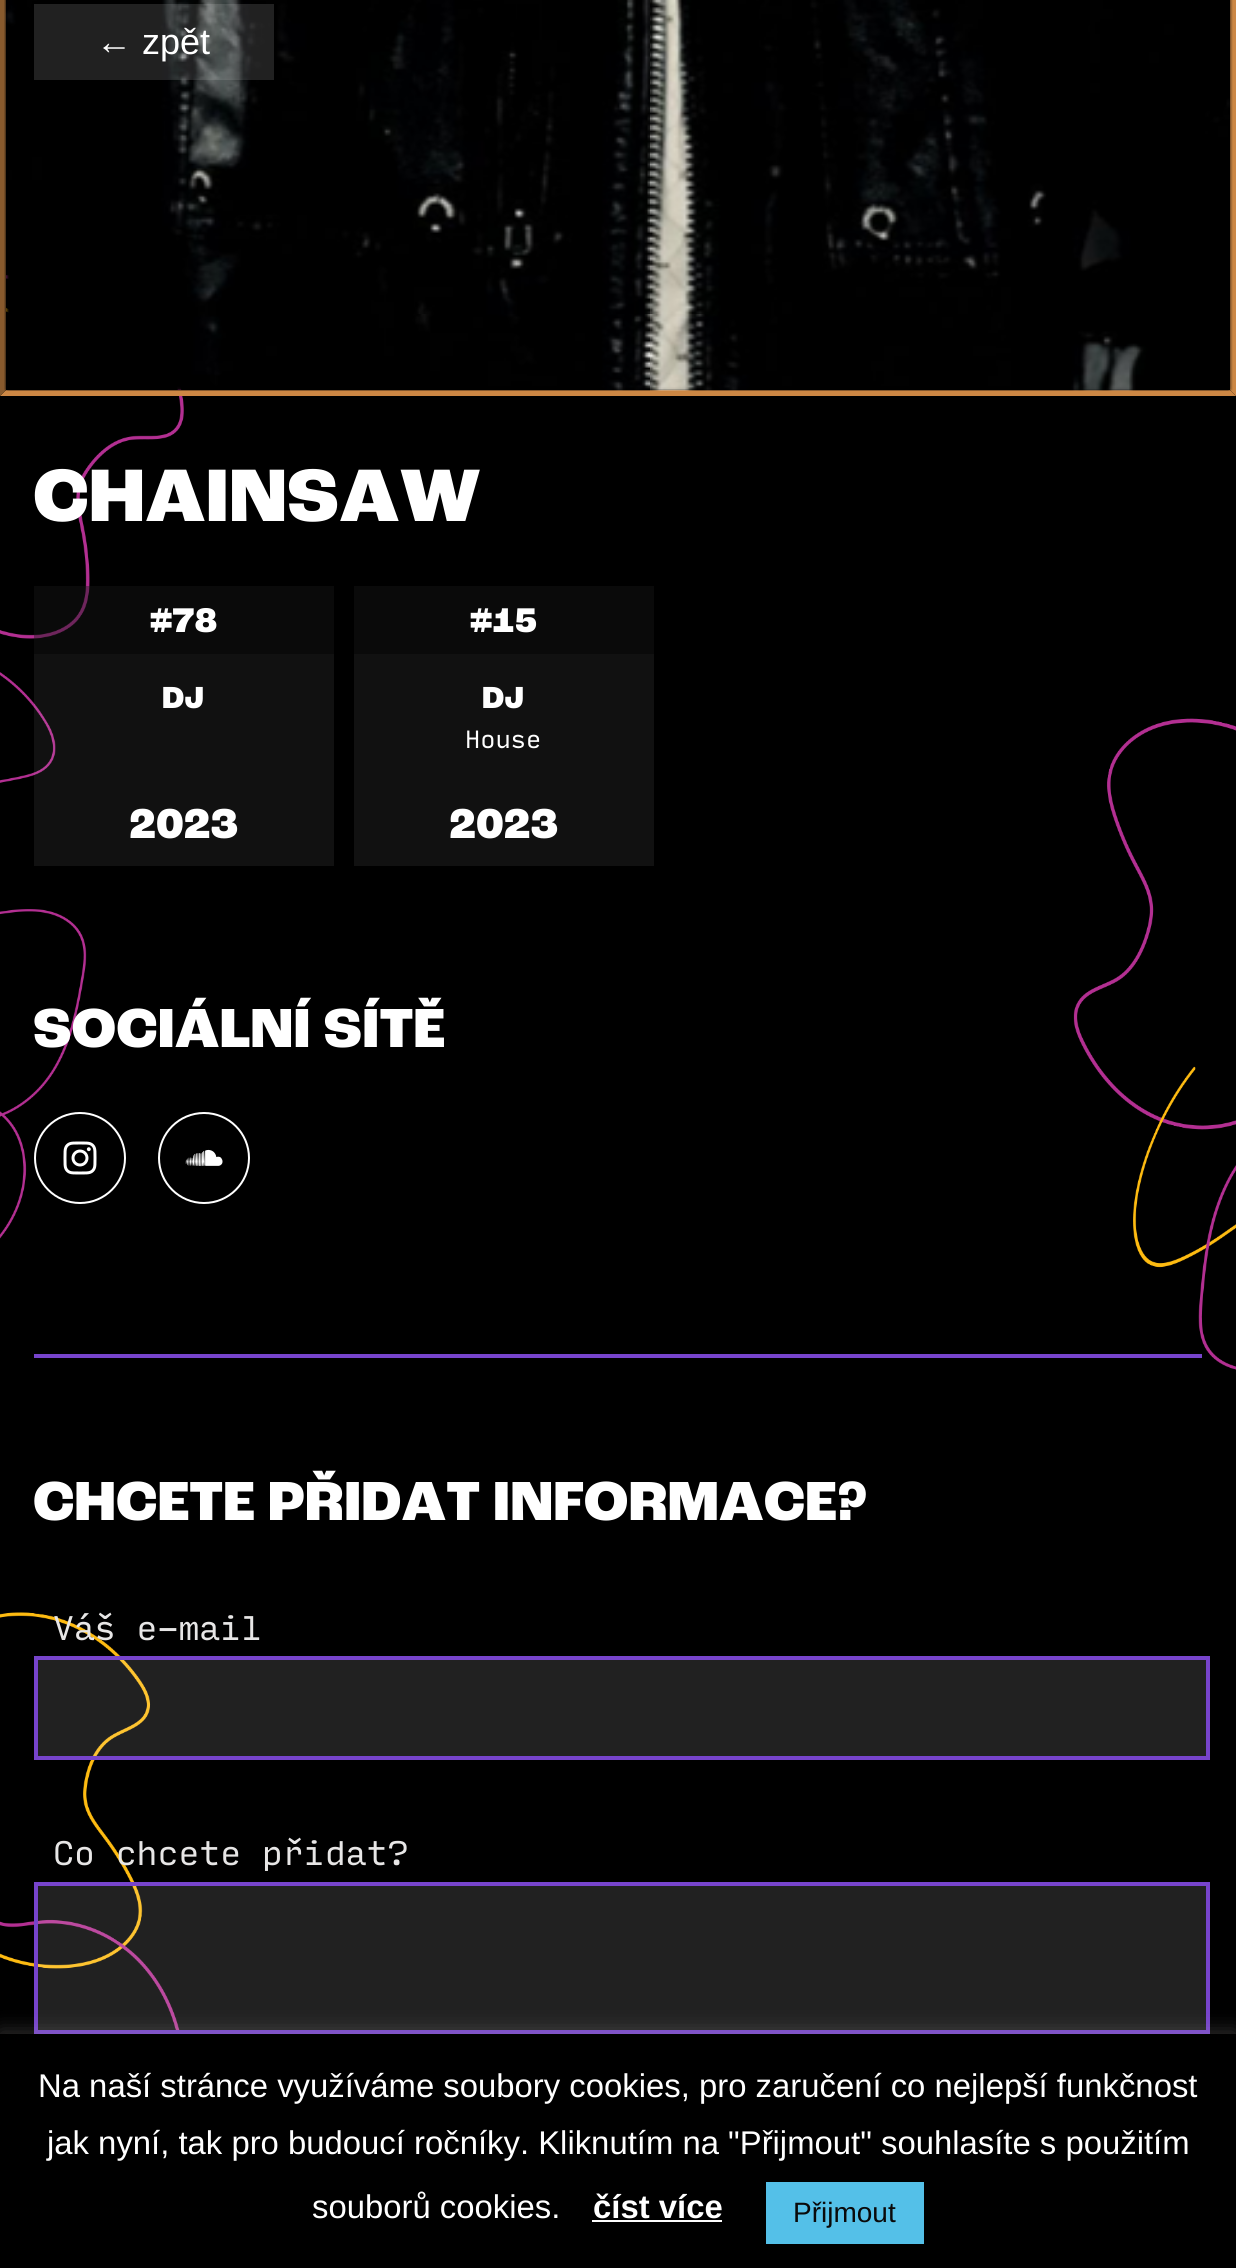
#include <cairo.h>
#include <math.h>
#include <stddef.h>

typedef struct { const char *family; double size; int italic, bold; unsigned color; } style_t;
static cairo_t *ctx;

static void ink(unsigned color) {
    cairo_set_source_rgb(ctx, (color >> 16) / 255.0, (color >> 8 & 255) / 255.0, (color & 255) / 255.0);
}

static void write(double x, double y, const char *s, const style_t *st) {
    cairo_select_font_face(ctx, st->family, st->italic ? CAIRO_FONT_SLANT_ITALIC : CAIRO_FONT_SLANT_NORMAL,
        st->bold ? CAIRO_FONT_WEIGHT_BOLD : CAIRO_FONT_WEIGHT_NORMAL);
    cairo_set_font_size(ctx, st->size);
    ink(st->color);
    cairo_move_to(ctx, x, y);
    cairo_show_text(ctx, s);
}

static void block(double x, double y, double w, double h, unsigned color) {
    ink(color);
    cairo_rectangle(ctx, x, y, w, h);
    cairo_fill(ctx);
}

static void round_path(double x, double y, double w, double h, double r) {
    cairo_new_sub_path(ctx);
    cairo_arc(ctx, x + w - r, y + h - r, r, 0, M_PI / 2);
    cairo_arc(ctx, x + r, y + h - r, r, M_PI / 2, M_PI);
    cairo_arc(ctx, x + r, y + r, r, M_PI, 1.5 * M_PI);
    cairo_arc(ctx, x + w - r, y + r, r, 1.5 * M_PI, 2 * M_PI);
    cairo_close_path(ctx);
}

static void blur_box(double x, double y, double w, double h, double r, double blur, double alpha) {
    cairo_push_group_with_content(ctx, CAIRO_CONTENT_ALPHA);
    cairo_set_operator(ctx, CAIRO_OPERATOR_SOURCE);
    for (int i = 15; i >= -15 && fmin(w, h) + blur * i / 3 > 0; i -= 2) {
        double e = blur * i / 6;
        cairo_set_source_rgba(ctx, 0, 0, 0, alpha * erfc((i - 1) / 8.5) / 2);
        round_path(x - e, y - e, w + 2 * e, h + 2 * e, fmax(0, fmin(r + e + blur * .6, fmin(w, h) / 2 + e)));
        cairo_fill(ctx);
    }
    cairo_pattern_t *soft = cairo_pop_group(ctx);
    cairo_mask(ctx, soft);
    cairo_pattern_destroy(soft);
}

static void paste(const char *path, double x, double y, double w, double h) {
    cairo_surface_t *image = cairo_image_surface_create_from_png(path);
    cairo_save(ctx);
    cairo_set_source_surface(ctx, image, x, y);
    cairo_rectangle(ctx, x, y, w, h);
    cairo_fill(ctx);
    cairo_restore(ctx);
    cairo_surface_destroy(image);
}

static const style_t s1 = {"Liberation Sans", 36, 0, 0, 0xffffff};
static const style_t s2 = {"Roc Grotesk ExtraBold", 78, 0, 0, 0xffffff};
static const style_t s3 = {"Roc Grotesk ExtraBold", 36, 0, 0, 0xffffff};
static const style_t s4 = {"Roc Grotesk ExtraBold", 32, 0, 0, 0xffffff};
static const style_t s5 = {"Roc Grotesk ExtraBold", 44, 0, 0, 0xffffff};
static const style_t s6 = {"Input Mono", 24, 0, 0, 0xffffff};
static const style_t s7 = {"Roc Grotesk ExtraBold", 57.75, 0, 0, 0xffffff};
static const style_t s8 = {"Input Mono", 32.85, 0, 0, 0xe7e6e6};
static const style_t s9 = {"Liberation Sans", 32.85, 0, 0, 0xffffff};
static const style_t s10 = {"Liberation Sans", 32.85, 0, 1, 0xffffff};
static const style_t s11 = {"Liberation Sans", 28, 0, 0, 0x0a0a0a};

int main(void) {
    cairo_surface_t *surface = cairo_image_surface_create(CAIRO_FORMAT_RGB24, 1236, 2268);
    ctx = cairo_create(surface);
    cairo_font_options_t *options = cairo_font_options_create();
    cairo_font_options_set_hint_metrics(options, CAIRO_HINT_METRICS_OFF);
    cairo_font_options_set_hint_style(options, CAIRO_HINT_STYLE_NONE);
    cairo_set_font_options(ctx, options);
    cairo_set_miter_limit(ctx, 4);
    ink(0x000000);
    cairo_paint(ctx);
    paste("pic1.png", 0, 274, 1236, 1756);
    ink(0xcc8744);
    cairo_new_path(ctx);
    cairo_move_to(ctx, 1236, -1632);
    cairo_line_to(ctx, 1236, 396);
    cairo_line_to(ctx, 1230, 390);
    cairo_line_to(ctx, 1230, -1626);
    cairo_close_path(ctx);
    cairo_fill(ctx);
    cairo_new_path(ctx);
    cairo_move_to(ctx, 1236, 396);
    cairo_line_to(ctx, 0, 396);
    cairo_line_to(ctx, 6, 390);
    cairo_line_to(ctx, 1230, 390);
    cairo_close_path(ctx);
    cairo_fill(ctx);
    ink(0x885a2d);
    cairo_new_path(ctx);
    cairo_move_to(ctx, 0, 396);
    cairo_line_to(ctx, 0, -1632);
    cairo_line_to(ctx, 6, -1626);
    cairo_line_to(ctx, 6, 390);
    cairo_close_path(ctx);
    cairo_fill(ctx);
    paste("pic2.png", 4, 0, 1229, 391);
    cairo_set_source_rgba(ctx, 1, 1, 1, 0.13);
    cairo_rectangle(ctx, 34, 4, 240, 76);
    cairo_fill(ctx);
    write(96, 54, "← zpět", &s1);
    write(33, 521, "CHAINSAW", &s2);
    cairo_set_source_rgba(ctx, 1, 1, 1, 0.07);
    cairo_rectangle(ctx, 34, 586, 300, 280);
    cairo_fill(ctx);
    cairo_set_source_rgba(ctx, 0, 0, 0, 0.4);
    cairo_rectangle(ctx, 34, 586, 300, 68);
    cairo_fill(ctx);
    write(150, 632, "#78", &s3);
    write(162, 708, "DJ", &s4);
    write(129, 838, "2023", &s5);
    block(354, 654, 300, 212, 0x111111);
    block(354, 586, 300, 68, 0x0a0a0a);
    write(470, 632, "#15", &s3);
    write(482, 708, "DJ", &s4);
    write(465, 748, "House", &s6);
    write(449, 838, "2023", &s5);
    write(33, 1047, "SOCIÁLNÍ SÍTĚ", &s7);
    cairo_new_path(ctx);
    cairo_arc(ctx, 80, 1158, 45, 0, 2 * M_PI);
    cairo_stroke(ctx);
    paste("pic3.png", 63, 1141, 34, 34);
    cairo_arc(ctx, 204, 1158, 45, 0, 2 * M_PI);
    cairo_stroke(ctx);
    paste("pic4.png", 185, 1149, 38, 17);
    block(34, 1354, 1168, 4, 0x7744cc);
    write(33, 1520, "CHCETE PŘIDAT INFORMACE?", &s7);
    write(53, 1640, "Váš e-mail", &s8);
    cairo_set_source_rgba(ctx, 1, 1, 1, 0.13);
    cairo_rectangle(ctx, 36, 1658, 1172, 100);
    cairo_fill_preserve(ctx);
    ink(0x7744cc);
    cairo_set_line_width(ctx, 4);
    cairo_stroke(ctx);
    write(53, 1865, "Co chcete přidat?", &s8);
    cairo_set_source_rgba(ctx, 1, 1, 1, 0.13);
    cairo_rectangle(ctx, 36, 1884, 1172, 148);
    cairo_fill_preserve(ctx);
    ink(0x7744cc);
    cairo_stroke(ctx);
    ink(0xacabab);
    blur_box(0, 2032, 1236, 234, 0, 10, 0.3);
    block(0, 2034, 1236, 234, 0x000000);
    write(38, 2097, "Na naší stránce využíváme soubory cookies, pro zaručení co nejlepší funkčnost", &s9);
    write(47, 2154, "jak nyní, tak pro budoucí ročníky. Kliknutím na \"Přijmout\" souhlasíte s použitím", &s9);
    write(312, 2218, "souborů cookies.", &s9);
    write(593, 2218, "číst více", &s10);
    block(592, 2220, 130, 2, 0xffffff);
    block(766, 2182, 158, 62, 0x54c0e8);
    write(793, 2222, "Přijmout", &s11);
    cairo_surface_write_to_png(surface, "screenshot.png");
    cairo_font_options_destroy(options);
    cairo_destroy(ctx);
    cairo_surface_destroy(surface);
    return 0;
}
